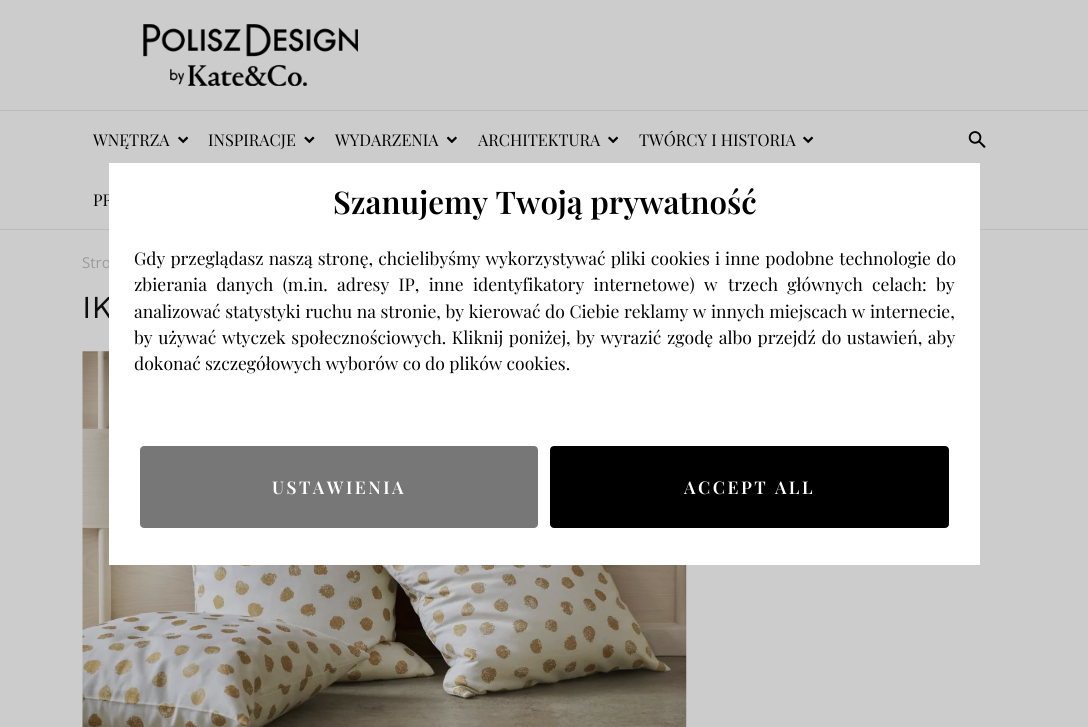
#include <cairo.h>
#include <math.h>
#include <stddef.h>

typedef struct { const char *family; double size; int italic, bold; unsigned color; } style_t;
static cairo_t *ctx;

static void ink(unsigned color) {
    cairo_set_source_rgb(ctx, (color >> 16) / 255.0, (color >> 8 & 255) / 255.0, (color & 255) / 255.0);
}

static void write(double x, double y, const char *s, const style_t *st) {
    cairo_select_font_face(ctx, st->family, st->italic ? CAIRO_FONT_SLANT_ITALIC : CAIRO_FONT_SLANT_NORMAL,
        st->bold ? CAIRO_FONT_WEIGHT_BOLD : CAIRO_FONT_WEIGHT_NORMAL);
    cairo_set_font_size(ctx, st->size);
    ink(st->color);
    cairo_move_to(ctx, x, y);
    cairo_show_text(ctx, s);
}

static void write_spaced(double x, double y, const char *s, double letter, double word) {
    cairo_move_to(ctx, x, y);
    while (*s) {
        char ch[5] = {0};
        int n = 0;
        do ch[n++] = *s++; while ((*s & 0xC0) == 0x80);
        cairo_show_text(ctx, ch);
        cairo_rel_move_to(ctx, letter + word * (*ch == ' '), 0);
    }
}

static void block(double x, double y, double w, double h, unsigned color) {
    ink(color);
    cairo_rectangle(ctx, x, y, w, h);
    cairo_fill(ctx);
}

static void round_path(double x, double y, double w, double h, double r) {
    cairo_new_sub_path(ctx);
    cairo_arc(ctx, x + w - r, y + h - r, r, 0, M_PI / 2);
    cairo_arc(ctx, x + r, y + h - r, r, M_PI / 2, M_PI);
    cairo_arc(ctx, x + r, y + r, r, M_PI, 1.5 * M_PI);
    cairo_arc(ctx, x + w - r, y + r, r, 1.5 * M_PI, 2 * M_PI);
    cairo_close_path(ctx);
}

static void paste(const char *path, double x, double y, double w, double h) {
    cairo_surface_t *image = cairo_image_surface_create_from_png(path);
    cairo_save(ctx);
    cairo_set_source_surface(ctx, image, x, y);
    cairo_rectangle(ctx, x, y, w, h);
    cairo_fill(ctx);
    cairo_restore(ctx);
    cairo_surface_destroy(image);
}

static const style_t s1 = {"Playfair Display", 16.25, 0, 0, 0x000000};
static const style_t s2 = {"Open Sans", 15, 0, 0, 0x9c9c9c};
static const style_t s3 = {"Work Sans", 32, 0, 0, 0x0e0e0e};
static const style_t s4 = {"Playfair Display SemiBold", 31.25, 0, 0, 0x000000};
static const style_t s5 = {"Playfair Display", 17.5, 0, 0, 0x000000};

int main(void) {
    cairo_surface_t *surface = cairo_image_surface_create(CAIRO_FORMAT_RGB24, 1088, 727);
    ctx = cairo_create(surface);
    cairo_font_options_t *options = cairo_font_options_create();
    cairo_font_options_set_hint_metrics(options, CAIRO_HINT_METRICS_OFF);
    cairo_font_options_set_hint_style(options, CAIRO_HINT_STYLE_NONE);
    cairo_set_font_options(ctx, options);
    cairo_set_miter_limit(ctx, 4);
    ink(0xcccccc);
    cairo_paint(ctx);
    paste("pic1.png", 143, 24, 215, 62);
    block(0, 110, 1088, 1, 0xbcbcbc);
    write(93, 146, "WNĘTRZA", &s1);
    paste("pic2.png", 178, 136, 11, 8);
    write(208, 146, "INSPIRACJE", &s1);
    paste("pic3.png", 304, 136, 11, 8);
    write(335, 146, "WYDARZENIA", &s1);
    paste("pic4.png", 446, 136, 11, 8);
    write(478, 146, "ARCHITEKTURA", &s1);
    paste("pic2.png", 608, 136, 11, 8);
    write(639, 146, "TWÓRCY I HISTORIA", &s1);
    paste("pic2.png", 803, 136, 11, 8);
    write(93, 206, "PR", &s1);
    paste("pic5.png", 968, 131, 18, 17);
    block(0, 229, 1088, 1, 0xbcbcbc);
    write(82, 268, "Stro", &s2);
    write(82, 318, "IK", &s3);
    paste("pic6.png", 82, 351, 605, 376);
    block(109, 163, 871, 402, 0xffffff);
    write(333, 214, "Szanujemy Twoją prywatność", &s4);
    cairo_select_font_face(ctx, "Playfair Display", CAIRO_FONT_SLANT_NORMAL, CAIRO_FONT_WEIGHT_NORMAL);
    cairo_set_font_size(ctx, 17.5);
    write_spaced(134, 265, "Gdy przeglądasz naszą stronę, chcielibyśmy wykorzystywać pliki cookies i", 0, 0.75);
    write_spaced(725, 265, "inne podobne technologie do", 0, 1);
    write_spaced(134, 291, "zbierania danych (m.in. adresy IP, inne identyfikatory internetowe) w", 0, 5);
    write_spaced(728, 291, "trzech głównych celach: by", 0, 5);
    write_spaced(134, 318, "analizować statystyki ruchu na stronie, by kierować do Ciebie reklamy w innych miejscach w internecie,", 0, 0.25);
    write_spaced(134, 344, "by używać wtyczek społecznościowych. Kliknij poniżej, by wyrazić", 0, 1.25);
    write_spaced(667, 344, "zgodę albo przejdź do ustawień, aby", 0, 1.25);
    write(134, 370, "dokonać szczegółowych wyborów co do plików cookies.", &s5);
    ink(0x777777);
    round_path(141.5, 447.5, 395, 79, 2.5);
    cairo_fill_preserve(ctx);
    cairo_set_line_width(ctx, 3);
    cairo_stroke(ctx);
    cairo_select_font_face(ctx, "Playfair Display SemiBold", CAIRO_FONT_SLANT_NORMAL, CAIRO_FONT_WEIGHT_NORMAL);
    ink(0xffffff);
    write_spaced(272, 494, "USTAWIENIA", 2.5, 0);
    ink(0x000000);
    round_path(551.5, 447.5, 396, 79, 2.5);
    cairo_fill_preserve(ctx);
    cairo_stroke(ctx);
    ink(0xffffff);
    write_spaced(684, 494, "ACCEPT ALL", 2.5, 0);
    cairo_surface_write_to_png(surface, "screenshot.png");
    cairo_font_options_destroy(options);
    cairo_destroy(ctx);
    cairo_surface_destroy(surface);
    return 0;
}
